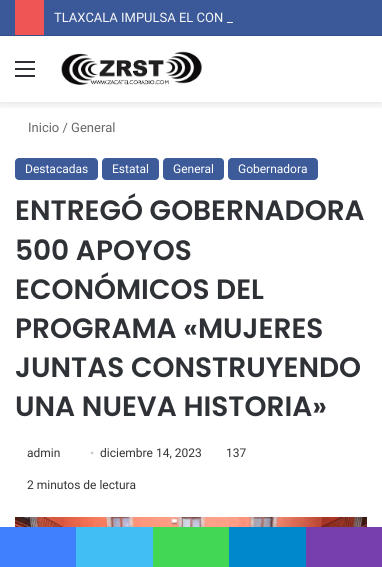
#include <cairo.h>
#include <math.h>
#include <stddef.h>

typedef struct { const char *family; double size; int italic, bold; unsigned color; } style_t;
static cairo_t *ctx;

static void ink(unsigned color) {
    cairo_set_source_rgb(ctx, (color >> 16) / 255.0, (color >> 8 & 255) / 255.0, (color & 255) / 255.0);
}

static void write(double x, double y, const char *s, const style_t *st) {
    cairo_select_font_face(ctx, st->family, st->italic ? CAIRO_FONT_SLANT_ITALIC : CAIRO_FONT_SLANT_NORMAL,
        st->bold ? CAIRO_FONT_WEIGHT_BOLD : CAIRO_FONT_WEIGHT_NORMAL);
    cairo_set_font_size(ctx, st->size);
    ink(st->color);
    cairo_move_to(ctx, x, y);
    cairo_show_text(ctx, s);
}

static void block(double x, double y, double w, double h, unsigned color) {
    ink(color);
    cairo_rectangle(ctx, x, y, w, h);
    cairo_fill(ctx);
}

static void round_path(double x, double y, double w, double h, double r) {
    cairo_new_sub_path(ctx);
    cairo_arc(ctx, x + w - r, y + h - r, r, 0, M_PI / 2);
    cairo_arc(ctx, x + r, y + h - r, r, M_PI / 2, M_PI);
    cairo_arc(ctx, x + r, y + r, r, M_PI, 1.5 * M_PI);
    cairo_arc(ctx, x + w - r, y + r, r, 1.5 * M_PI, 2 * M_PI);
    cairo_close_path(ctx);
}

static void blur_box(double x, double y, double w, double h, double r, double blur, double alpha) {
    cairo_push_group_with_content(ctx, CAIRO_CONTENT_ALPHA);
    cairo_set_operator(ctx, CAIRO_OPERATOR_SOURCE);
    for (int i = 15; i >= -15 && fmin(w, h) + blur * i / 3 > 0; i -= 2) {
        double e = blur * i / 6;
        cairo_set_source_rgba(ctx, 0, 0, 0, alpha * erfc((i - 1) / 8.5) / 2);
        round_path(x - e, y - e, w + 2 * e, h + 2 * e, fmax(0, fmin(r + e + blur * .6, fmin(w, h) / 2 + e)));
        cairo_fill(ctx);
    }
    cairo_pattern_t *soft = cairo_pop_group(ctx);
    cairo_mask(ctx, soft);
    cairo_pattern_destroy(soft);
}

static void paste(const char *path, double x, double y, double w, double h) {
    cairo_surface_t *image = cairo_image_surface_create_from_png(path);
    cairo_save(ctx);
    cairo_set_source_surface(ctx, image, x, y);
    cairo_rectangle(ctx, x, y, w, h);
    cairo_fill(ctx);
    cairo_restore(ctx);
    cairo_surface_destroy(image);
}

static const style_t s1 = {"Roboto", 13, 0, 0, 0xf6f7f9};
static const style_t s2 = {"Roboto", 13, 0, 0, 0xffffff};
static const style_t s3 = {"Roboto", 13, 0, 0, 0x686868};
static const style_t s4 = {"Roboto", 12, 0, 0, 0xffffff};
static const style_t s5 = {"Poppins SemiBold", 28, 0, 0, 0x2e3136};
static const style_t s6 = {"Roboto", 12, 0, 0, 0x353535};
static const style_t s7 = {"Liberation Serif", 12, 0, 0, 0xcdcdcd};

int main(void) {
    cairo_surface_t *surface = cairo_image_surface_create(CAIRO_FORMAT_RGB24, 382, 567);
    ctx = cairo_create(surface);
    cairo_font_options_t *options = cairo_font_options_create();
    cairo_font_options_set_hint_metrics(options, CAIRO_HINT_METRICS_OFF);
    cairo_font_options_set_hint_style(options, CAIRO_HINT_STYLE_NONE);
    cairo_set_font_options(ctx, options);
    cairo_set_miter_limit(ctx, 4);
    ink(0xffffff);
    cairo_paint(ctx);
    cairo_save(ctx);
    cairo_rectangle(ctx, 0, 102, 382, 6);
    cairo_clip(ctx);
    ink(0x000000);
    blur_box(0, 39, 382, 66, 0, 3.5, 0.1);
    cairo_restore(ctx);
    block(0, 0, 382, 35, 0x3b5998);
    block(0, 35, 382, 1, 0x355089);
    block(15, 0, 29, 35, 0xf05555);
    write(54, 22, "TLAXCALA IMPULSA EL CON", &s1);
    write(227, 22, "_", &s2);
    block(15, 68, 20, 2, 0x2c2f34);
    block(15, 61, 20, 2, 0x2c2f34);
    block(15, 75, 20, 2, 0x2c2f34);
    paste("pic1.png", 61, 51, 141, 34);
    write(28, 132, "Inicio / General", &s3);
    ink(0x3d5b99);
    round_path(15, 158, 83, 22, 4);
    cairo_fill(ctx);
    write(25, 173, "Destacadas", &s4);
    ink(0x3d5b99);
    round_path(102, 158, 57, 22, 4);
    cairo_fill(ctx);
    write(112, 173, "Estatal", &s4);
    ink(0x3d5b99);
    round_path(163, 158, 61, 22, 4);
    cairo_fill(ctx);
    write(173, 173, "General", &s4);
    ink(0x3d5b99);
    round_path(228, 158, 90, 22, 4);
    cairo_fill(ctx);
    write(238, 173, "Gobernadora", &s4);
    write(15, 220, "ENTREGÓ GOBERNADORA", &s5);
    write(15, 260, "500 APOYOS", &s5);
    write(15, 299, "ECONÓMICOS DEL", &s5);
    write(15, 338, "PROGRAMA «MUJERES", &s5);
    write(15, 377, "JUNTAS CONSTRUYENDO", &s5);
    write(15, 416, "UNA NUEVA HISTORIA»", &s5);
    write(226, 457, "137", &s6);
    write(27, 489, "2 minutos de lectura", &s6);
    write(27, 457, "admin", &s6);
    write(90, 457, "•", &s7);
    write(100, 457, "diciembre 14, 2023", &s6);
    paste("pic2.png", 15, 517, 352, 10);
    block(0, 527, 76, 40, 0x4080ff);
    block(76, 527, 77, 40, 0x40bff5);
    block(153, 527, 76, 40, 0x43d854);
    block(229, 527, 77, 40, 0x0088cc);
    block(306, 527, 76, 40, 0x773ead);
    cairo_surface_write_to_png(surface, "screenshot.png");
    cairo_font_options_destroy(options);
    cairo_destroy(ctx);
    cairo_surface_destroy(surface);
    return 0;
}
